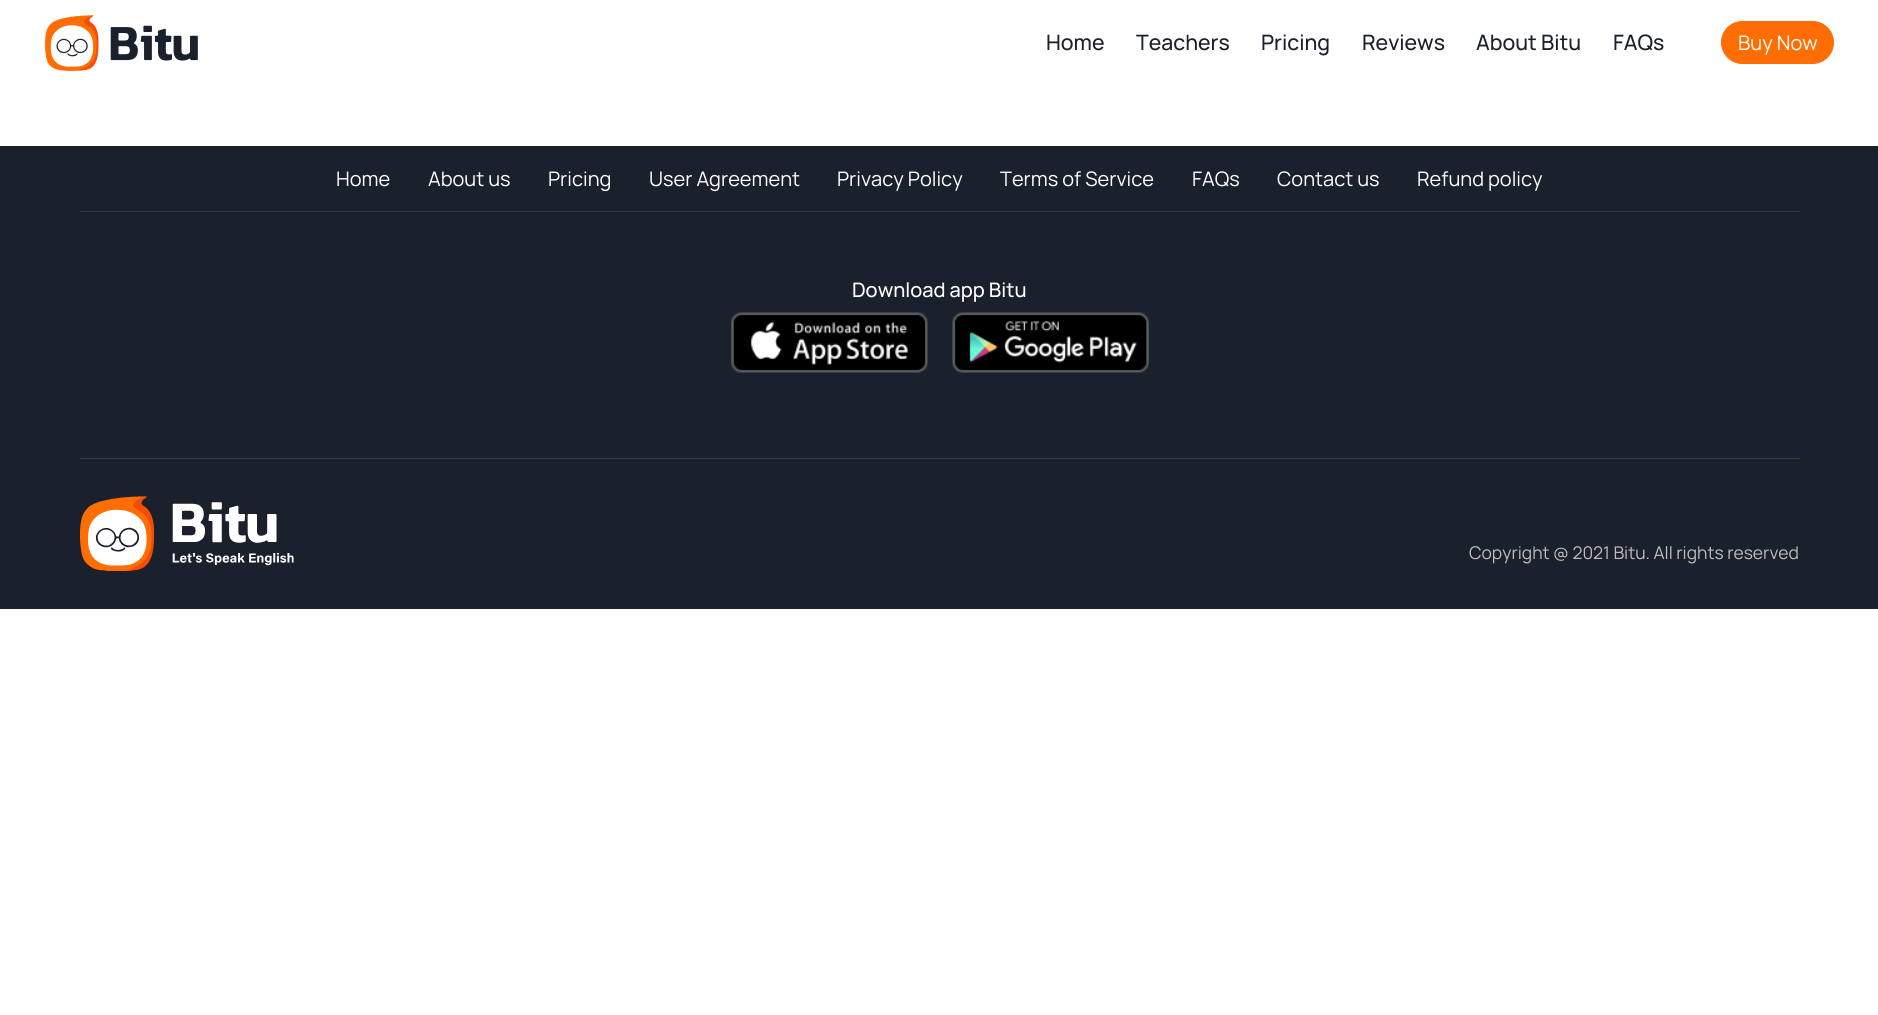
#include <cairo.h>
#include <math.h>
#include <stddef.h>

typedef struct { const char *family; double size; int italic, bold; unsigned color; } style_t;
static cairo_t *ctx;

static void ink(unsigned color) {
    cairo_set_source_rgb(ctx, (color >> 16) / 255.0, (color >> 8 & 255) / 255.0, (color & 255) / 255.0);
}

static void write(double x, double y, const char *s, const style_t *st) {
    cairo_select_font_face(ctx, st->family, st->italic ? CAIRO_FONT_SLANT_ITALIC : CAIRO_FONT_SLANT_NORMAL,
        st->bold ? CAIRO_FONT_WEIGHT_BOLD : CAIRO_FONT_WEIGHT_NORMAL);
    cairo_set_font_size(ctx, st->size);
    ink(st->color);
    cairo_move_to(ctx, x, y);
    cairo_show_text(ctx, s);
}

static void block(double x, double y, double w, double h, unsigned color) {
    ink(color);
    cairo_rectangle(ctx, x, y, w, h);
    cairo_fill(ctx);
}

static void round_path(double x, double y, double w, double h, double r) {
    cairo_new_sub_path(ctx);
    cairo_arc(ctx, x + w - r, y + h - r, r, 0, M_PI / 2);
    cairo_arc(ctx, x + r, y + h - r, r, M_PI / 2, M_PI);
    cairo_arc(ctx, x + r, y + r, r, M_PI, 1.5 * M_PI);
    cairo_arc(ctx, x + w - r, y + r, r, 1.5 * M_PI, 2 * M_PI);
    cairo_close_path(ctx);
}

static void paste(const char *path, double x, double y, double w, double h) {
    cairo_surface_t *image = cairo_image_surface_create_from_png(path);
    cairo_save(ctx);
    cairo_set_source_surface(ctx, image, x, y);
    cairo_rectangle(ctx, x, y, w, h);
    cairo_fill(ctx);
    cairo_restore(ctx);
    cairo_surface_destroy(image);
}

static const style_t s1 = {"Manrope Medium", 21.25, 0, 0, 0x1a202c};
static const style_t s2 = {"Manrope", 20, 0, 0, 0xffffff};
static const style_t s3 = {"Manrope Medium", 20, 0, 0, 0xffffff};
static const style_t s4 = {"Manrope", 17.5, 0, 0, 0xbebdbd};

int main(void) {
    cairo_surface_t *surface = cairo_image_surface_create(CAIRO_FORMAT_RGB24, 1878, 1015);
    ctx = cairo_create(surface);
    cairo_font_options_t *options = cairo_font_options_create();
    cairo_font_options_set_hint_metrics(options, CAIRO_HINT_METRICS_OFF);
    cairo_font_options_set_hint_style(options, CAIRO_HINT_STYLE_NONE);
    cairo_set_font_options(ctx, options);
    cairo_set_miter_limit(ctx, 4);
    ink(0xffffff);
    cairo_paint(ctx);
    paste("pic1.png", 45, 15, 153, 56);
    write(1046, 50, "Home", &s1);
    write(1136, 50, "Teachers", &s1);
    write(1261, 50, "Pricing", &s1);
    write(1362, 50, "Reviews", &s1);
    write(1476, 50, "About Bitu", &s1);
    write(1613, 50, "FAQs", &s1);
    ink(0xff6d03);
    round_path(1721.5, 21.5, 112, 42, 21);
    cairo_fill_preserve(ctx);
    cairo_set_line_width(ctx, 1);
    cairo_stroke(ctx);
    write(1738, 50, "Buy Now", &s2);
    block(0, 146, 1878, 463, 0x1a202c);
    write(336, 186, "Home", &s2);
    write(428, 186, "About us", &s2);
    write(548, 186, "Pricing", &s2);
    write(649, 186, "User Agreement", &s2);
    write(837, 186, "Privacy Policy", &s2);
    write(1000, 186, "Terms of Service", &s2);
    write(1192, 186, "FAQs", &s2);
    write(1277, 186, "Contact us", &s2);
    write(1417, 186, "Refund policy", &s2);
    block(80, 211, 1720, 1, 0x313641);
    write(852, 297, "Download app Bitu", &s3);
    paste("pic2.png", 731, 312, 197, 61);
    paste("pic3.png", 952, 312, 197, 61);
    block(80, 458, 1720, 1, 0x3d3a39);
    paste("pic4.png", 80, 496, 214, 75);
    write(1469, 559, "Copyright @ 2021 Bitu. All rights reserved", &s4);
    cairo_surface_write_to_png(surface, "screenshot.png");
    cairo_font_options_destroy(options);
    cairo_destroy(ctx);
    cairo_surface_destroy(surface);
    return 0;
}
